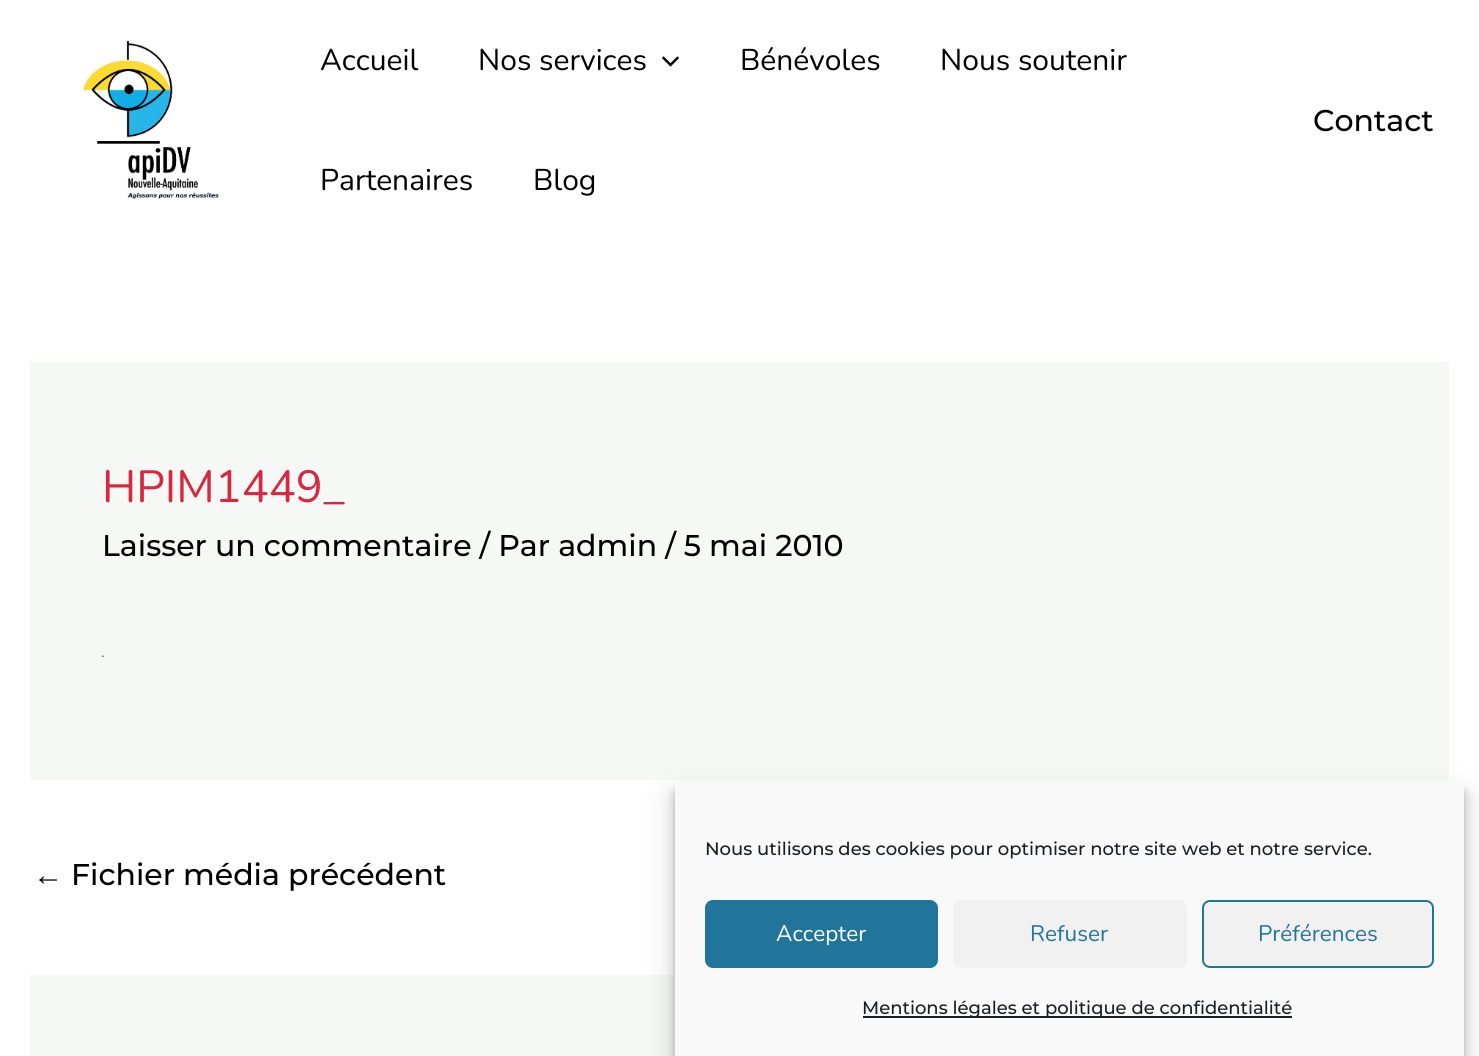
#include <cairo.h>
#include <math.h>
#include <stddef.h>

typedef struct { const char *family; double size; int italic, bold; unsigned color; } style_t;
static cairo_t *ctx;

static void ink(unsigned color) {
    cairo_set_source_rgb(ctx, (color >> 16) / 255.0, (color >> 8 & 255) / 255.0, (color & 255) / 255.0);
}

static void write(double x, double y, const char *s, const style_t *st) {
    cairo_select_font_face(ctx, st->family, st->italic ? CAIRO_FONT_SLANT_ITALIC : CAIRO_FONT_SLANT_NORMAL,
        st->bold ? CAIRO_FONT_WEIGHT_BOLD : CAIRO_FONT_WEIGHT_NORMAL);
    cairo_set_font_size(ctx, st->size);
    ink(st->color);
    cairo_move_to(ctx, x, y);
    cairo_show_text(ctx, s);
}

static void block(double x, double y, double w, double h, unsigned color) {
    ink(color);
    cairo_rectangle(ctx, x, y, w, h);
    cairo_fill(ctx);
}

static void round_path(double x, double y, double w, double h, double r) {
    cairo_new_sub_path(ctx);
    cairo_arc(ctx, x + w - r, y + h - r, r, 0, M_PI / 2);
    cairo_arc(ctx, x + r, y + h - r, r, M_PI / 2, M_PI);
    cairo_arc(ctx, x + r, y + r, r, M_PI, 1.5 * M_PI);
    cairo_arc(ctx, x + w - r, y + r, r, 1.5 * M_PI, 2 * M_PI);
    cairo_close_path(ctx);
}

static void blur_box(double x, double y, double w, double h, double r, double blur, double alpha) {
    cairo_push_group_with_content(ctx, CAIRO_CONTENT_ALPHA);
    cairo_set_operator(ctx, CAIRO_OPERATOR_SOURCE);
    for (int i = 15; i >= -15 && fmin(w, h) + blur * i / 3 > 0; i -= 2) {
        double e = blur * i / 6;
        cairo_set_source_rgba(ctx, 0, 0, 0, alpha * erfc((i - 1) / 8.5) / 2);
        round_path(x - e, y - e, w + 2 * e, h + 2 * e, fmax(0, fmin(r + e + blur * .6, fmin(w, h) / 2 + e)));
        cairo_fill(ctx);
    }
    cairo_pattern_t *soft = cairo_pop_group(ctx);
    cairo_mask(ctx, soft);
    cairo_pattern_destroy(soft);
}

static void paste(const char *path, double x, double y, double w, double h) {
    cairo_surface_t *image = cairo_image_surface_create_from_png(path);
    cairo_save(ctx);
    cairo_set_source_surface(ctx, image, x, y);
    cairo_rectangle(ctx, x, y, w, h);
    cairo_fill(ctx);
    cairo_restore(ctx);
    cairo_surface_destroy(image);
}

static const style_t s1 = {"Nunito", 30, 0, 0, 0x000000};
static const style_t s2 = {"Montserrat Medium", 30, 0, 0, 0x000000};
static const style_t s3 = {"Nunito", 45, 0, 0, 0xd52941};
static const style_t s4 = {"Liberation Sans", 30, 0, 0, 0x000000};
static const style_t s5 = {"Montserrat Medium", 18, 0, 0, 0x191e23};
static const style_t s6 = {"Nunito", 22.5, 0, 0, 0xffffff};
static const style_t s7 = {"Nunito", 22.5, 0, 0, 0x21759b};

int main(void) {
    cairo_surface_t *surface = cairo_image_surface_create(CAIRO_FORMAT_RGB24, 1479, 1056);
    ctx = cairo_create(surface);
    cairo_font_options_t *options = cairo_font_options_create();
    cairo_font_options_set_hint_metrics(options, CAIRO_HINT_METRICS_OFF);
    cairo_font_options_set_hint_style(options, CAIRO_HINT_STYLE_NONE);
    cairo_set_font_options(ctx, options);
    cairo_set_miter_limit(ctx, 4);
    ink(0xffffff);
    cairo_paint(ctx);
    paste("pic1.png", 83, 41, 136, 158);
    write(320, 70, "Accueil", &s1);
    write(478, 70, "Nos services", &s1);
    paste("pic2.png", 662, 56, 17, 11);
    write(740, 70, "Bénévoles", &s1);
    write(940, 70, "Nous soutenir", &s1);
    write(320, 190, "Partenaires", &s1);
    write(533, 190, "Blog", &s1);
    write(1313, 131, "Contact", &s2);
    block(30, 362, 1419, 418, 0xf6f8f5);
    write(102, 502, "HPIM1449_", &s3);
    write(102, 556, "Laisser un commentaire / Par admin / 5 mai 2010", &s2);
    paste("pic3.png", 102, 655, 2, 2);
    write(33, 885, "←", &s4);
    write(71, 885, "Fichier média précédent", &s2);
    block(30, 975, 645, 81, 0xf6f8f5);
    ink(0x000000);
    blur_box(675, 792, 789, 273, 0, 4.5, 0.23);
    blur_box(675, 798, 789, 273, 0, 15, 0.19);
    block(675, 783, 789, 273, 0xf9f9f9);
    write(705, 855, "Nous utilisons des cookies pour optimiser notre site web et notre service.", &s5);
    ink(0x21759b);
    round_path(706, 901, 231, 66, 7);
    cairo_fill_preserve(ctx);
    cairo_stroke(ctx);
    write(776, 941, "Accepter", &s6);
    ink(0xf1f1f1);
    round_path(953, 900, 234, 68, 8);
    cairo_fill(ctx);
    write(1030, 941, "Refuser", &s7);
    ink(0xf1f1f1);
    round_path(1203, 901, 230, 66, 7);
    cairo_fill_preserve(ctx);
    ink(0x21759b);
    cairo_stroke(ctx);
    write(1258, 941, "Préférences", &s7);
    block(863, 1016, 429, 2, 0x191e23);
    write(862, 1014, "Mentions légales et politique de confidentialité", &s5);
    cairo_surface_write_to_png(surface, "screenshot.png");
    cairo_font_options_destroy(options);
    cairo_destroy(ctx);
    cairo_surface_destroy(surface);
    return 0;
}
